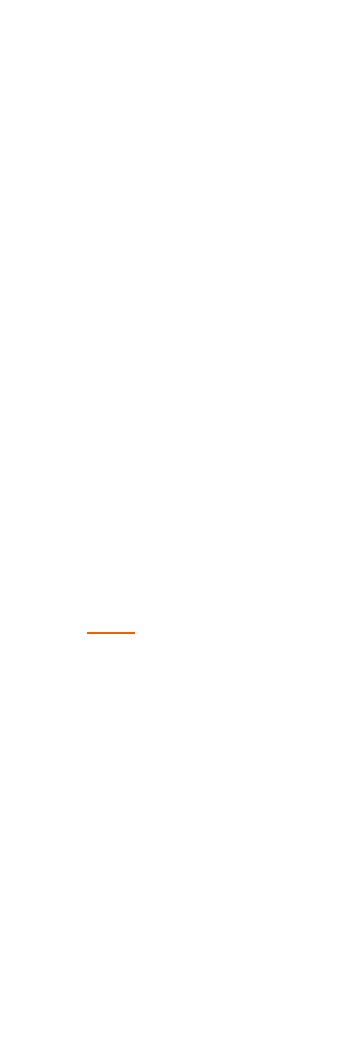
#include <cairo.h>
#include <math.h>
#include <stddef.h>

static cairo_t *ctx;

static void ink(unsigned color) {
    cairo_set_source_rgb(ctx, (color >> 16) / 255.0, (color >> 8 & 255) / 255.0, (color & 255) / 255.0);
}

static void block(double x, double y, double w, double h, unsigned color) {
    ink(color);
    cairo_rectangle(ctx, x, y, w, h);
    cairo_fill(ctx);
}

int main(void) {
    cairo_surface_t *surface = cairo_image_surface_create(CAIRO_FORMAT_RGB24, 354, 1057);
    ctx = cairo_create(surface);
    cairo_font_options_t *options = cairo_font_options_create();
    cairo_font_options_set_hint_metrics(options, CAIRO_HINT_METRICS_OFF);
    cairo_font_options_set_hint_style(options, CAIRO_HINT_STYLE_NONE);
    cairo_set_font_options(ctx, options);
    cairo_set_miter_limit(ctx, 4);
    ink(0xffffff);
    cairo_paint(ctx);
    block(87, 632, 48, 2, 0xef6000);
    cairo_surface_write_to_png(surface, "screenshot.png");
    cairo_font_options_destroy(options);
    cairo_destroy(ctx);
    cairo_surface_destroy(surface);
    return 0;
}
